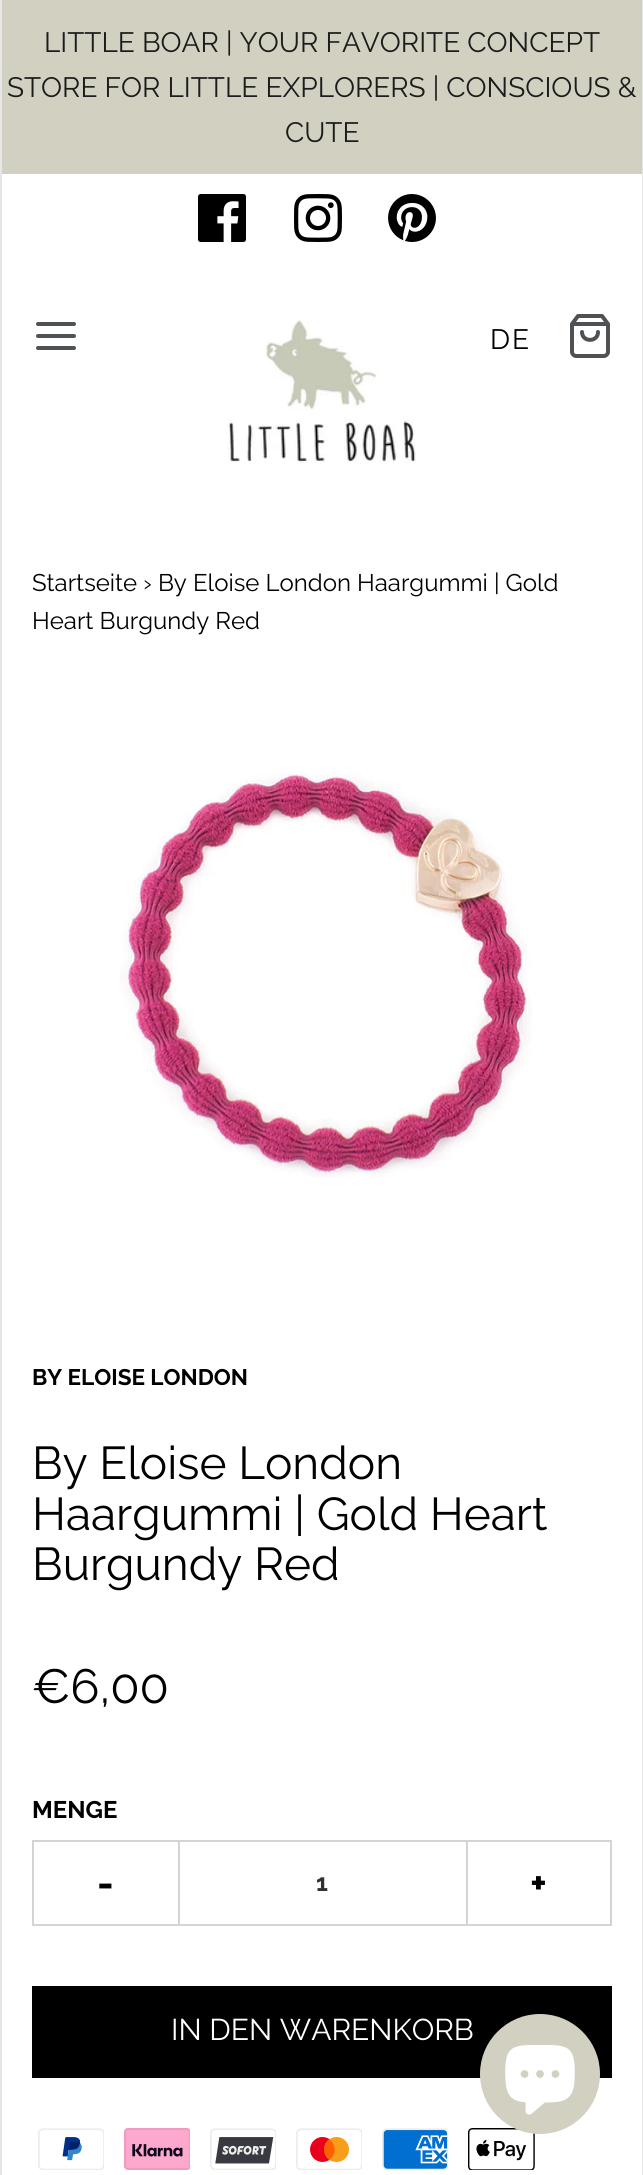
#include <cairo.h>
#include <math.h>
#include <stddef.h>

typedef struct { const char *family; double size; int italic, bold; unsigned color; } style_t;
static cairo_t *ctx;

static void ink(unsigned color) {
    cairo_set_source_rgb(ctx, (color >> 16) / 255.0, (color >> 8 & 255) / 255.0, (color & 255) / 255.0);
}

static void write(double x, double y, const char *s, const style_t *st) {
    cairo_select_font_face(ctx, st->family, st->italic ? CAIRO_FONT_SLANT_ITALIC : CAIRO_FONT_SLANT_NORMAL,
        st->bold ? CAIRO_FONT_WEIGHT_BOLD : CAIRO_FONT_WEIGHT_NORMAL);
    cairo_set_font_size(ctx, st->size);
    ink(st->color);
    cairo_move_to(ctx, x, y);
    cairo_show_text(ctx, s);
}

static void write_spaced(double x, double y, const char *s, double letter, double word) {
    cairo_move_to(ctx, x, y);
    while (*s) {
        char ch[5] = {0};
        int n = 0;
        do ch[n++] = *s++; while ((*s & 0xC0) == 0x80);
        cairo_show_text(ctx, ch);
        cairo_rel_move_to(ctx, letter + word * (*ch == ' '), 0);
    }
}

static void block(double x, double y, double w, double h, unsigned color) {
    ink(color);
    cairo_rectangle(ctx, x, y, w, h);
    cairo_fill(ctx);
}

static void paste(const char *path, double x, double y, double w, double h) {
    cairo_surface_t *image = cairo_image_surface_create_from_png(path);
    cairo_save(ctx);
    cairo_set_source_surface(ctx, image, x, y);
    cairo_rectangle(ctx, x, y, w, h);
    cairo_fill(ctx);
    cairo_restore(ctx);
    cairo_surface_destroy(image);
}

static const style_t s1 = {"Raleway", 28, 0, 0, 0x1c1c1c};
static const style_t s2 = {"Raleway", 24, 0, 0, 0x000000};
static const style_t s3 = {"Raleway", 22.5, 0, 1, 0x000000};
static const style_t s4 = {"Raleway", 46, 0, 0, 0x000000};
static const style_t s5 = {"Raleway", 48, 0, 0, 0x000000};
static const style_t s6 = {"Raleway", 24, 0, 1, 0x000000};
static const style_t s7 = {"Raleway", 40, 0, 1, 0x000000};
static const style_t s8 = {"Raleway", 24, 0, 1, 0x313131};
static const style_t s9 = {"Raleway", 30, 0, 0, 0xffffff};

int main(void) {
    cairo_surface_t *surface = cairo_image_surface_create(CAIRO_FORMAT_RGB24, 643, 2175);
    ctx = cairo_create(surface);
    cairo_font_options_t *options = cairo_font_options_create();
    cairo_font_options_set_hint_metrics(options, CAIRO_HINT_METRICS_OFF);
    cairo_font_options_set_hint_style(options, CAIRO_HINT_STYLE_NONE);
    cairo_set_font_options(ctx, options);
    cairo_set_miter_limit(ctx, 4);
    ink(0xffffff);
    cairo_paint(ctx);
    block(642, 0, 1, 2175, 0xe6e6e6);
    block(0, 0, 2, 2175, 0xe6e6e6);
    block(2, 0, 640, 174, 0xd1d0c1);
    write(44, 52, "LITTLE BOAR | YOUR FAVORITE CONCEPT", &s1);
    write(7, 97, "STORE FOR LITTLE EXPLORERS | CONSCIOUS &", &s1);
    write(285, 142, "CUTE", &s1);
    paste("pic1.png", 198, 194, 48, 48);
    paste("pic2.png", 294, 194, 48, 48);
    paste("pic3.png", 388, 194, 48, 48);
    cairo_new_path(ctx);
    cairo_move_to(ctx, 38, 336);
    cairo_line_to(ctx, 74, 336);
    cairo_move_to(ctx, 38, 324);
    cairo_line_to(ctx, 74, 324);
    cairo_move_to(ctx, 38, 348);
    cairo_line_to(ctx, 74, 348);
    ink(0x4e5254);
    cairo_set_line_width(ctx, 4);
    cairo_set_line_cap(ctx, CAIRO_LINE_CAP_ROUND);
    cairo_set_line_join(ctx, CAIRO_LINE_JOIN_ROUND);
    cairo_stroke(ctx);
    paste("pic4.png", 227, 320, 189, 143);
    ink(0x000000);
    write_spaced(490, 349, "DE", 2, 0);
    cairo_new_path(ctx);
    cairo_move_to(ctx, 578, 316);
    cairo_line_to(ctx, 572, 324);
    cairo_line_to(ctx, 572, 352);
    cairo_curve_to(ctx, 572, 354, 574, 356, 576, 356);
    cairo_line_to(ctx, 604, 356);
    cairo_curve_to(ctx, 606, 356, 608, 354, 608, 352);
    cairo_line_to(ctx, 608, 324);
    cairo_line_to(ctx, 602, 316);
    cairo_close_path(ctx);
    cairo_move_to(ctx, 572, 324);
    cairo_line_to(ctx, 608, 324);
    cairo_move_to(ctx, 598, 332);
    cairo_curve_to(ctx, 598, 342.5, 582, 342.5, 582, 332);
    ink(0x4e5254);
    cairo_stroke(ctx);
    write(32, 591, "Startseite › By Eloise London Haargummi | Gold", &s2);
    write(32, 629, "Heart Burgundy Red", &s2);
    paste("pic5.png", 120, 772, 413, 406);
    write(32, 1385, "BY ELOISE LONDON", &s3);
    write(32, 1479, "By Eloise London", &s4);
    write(32, 1530, "Haargummi | Gold Heart", &s4);
    write(32, 1580, "Burgundy Red", &s4);
    write(32, 1703, "€6,00", &s5);
    write(32, 1818, "MENGE", &s6);
    block(32, 1840, 146, 2, 0xd4d4d4);
    block(32, 1924, 146, 2, 0xd4d4d4);
    block(32, 1840, 2, 86, 0xd4d4d4);
    write(97, 1897, "-", &s7);
    cairo_rectangle(ctx, 179, 1841, 288, 84);
    ink(0xd4d4d4);
    cairo_set_line_width(ctx, 2);
    cairo_set_line_cap(ctx, CAIRO_LINE_CAP_BUTT);
    cairo_set_line_join(ctx, CAIRO_LINE_JOIN_MITER);
    cairo_stroke(ctx);
    write(316, 1891, "1", &s8);
    block(468, 1840, 144, 2, 0xd4d4d4);
    block(610, 1840, 2, 86, 0xd4d4d4);
    block(468, 1924, 144, 2, 0xd4d4d4);
    write(530, 1897, "+", &s7);
    block(32, 1986, 580, 92, 0x000000);
    write(171, 2040, "IN DEN WARENKORB", &s9);
    paste("pic6.png", 38, 2128, 66, 42);
    paste("pic7.png", 124, 2128, 66, 42);
    paste("pic8.png", 210, 2128, 66, 42);
    paste("pic9.png", 296, 2128, 66, 42);
    paste("pic10.png", 382, 2128, 66, 42);
    paste("pic11.png", 468, 2128, 67, 42);
    ink(0xd1d0c1);
    cairo_arc(ctx, 540, 2074, 60, 0, 2 * M_PI);
    cairo_fill(ctx);
    paste("pic12.png", 505, 2045, 70, 70);
    cairo_surface_write_to_png(surface, "screenshot.png");
    cairo_font_options_destroy(options);
    cairo_destroy(ctx);
    cairo_surface_destroy(surface);
    return 0;
}
